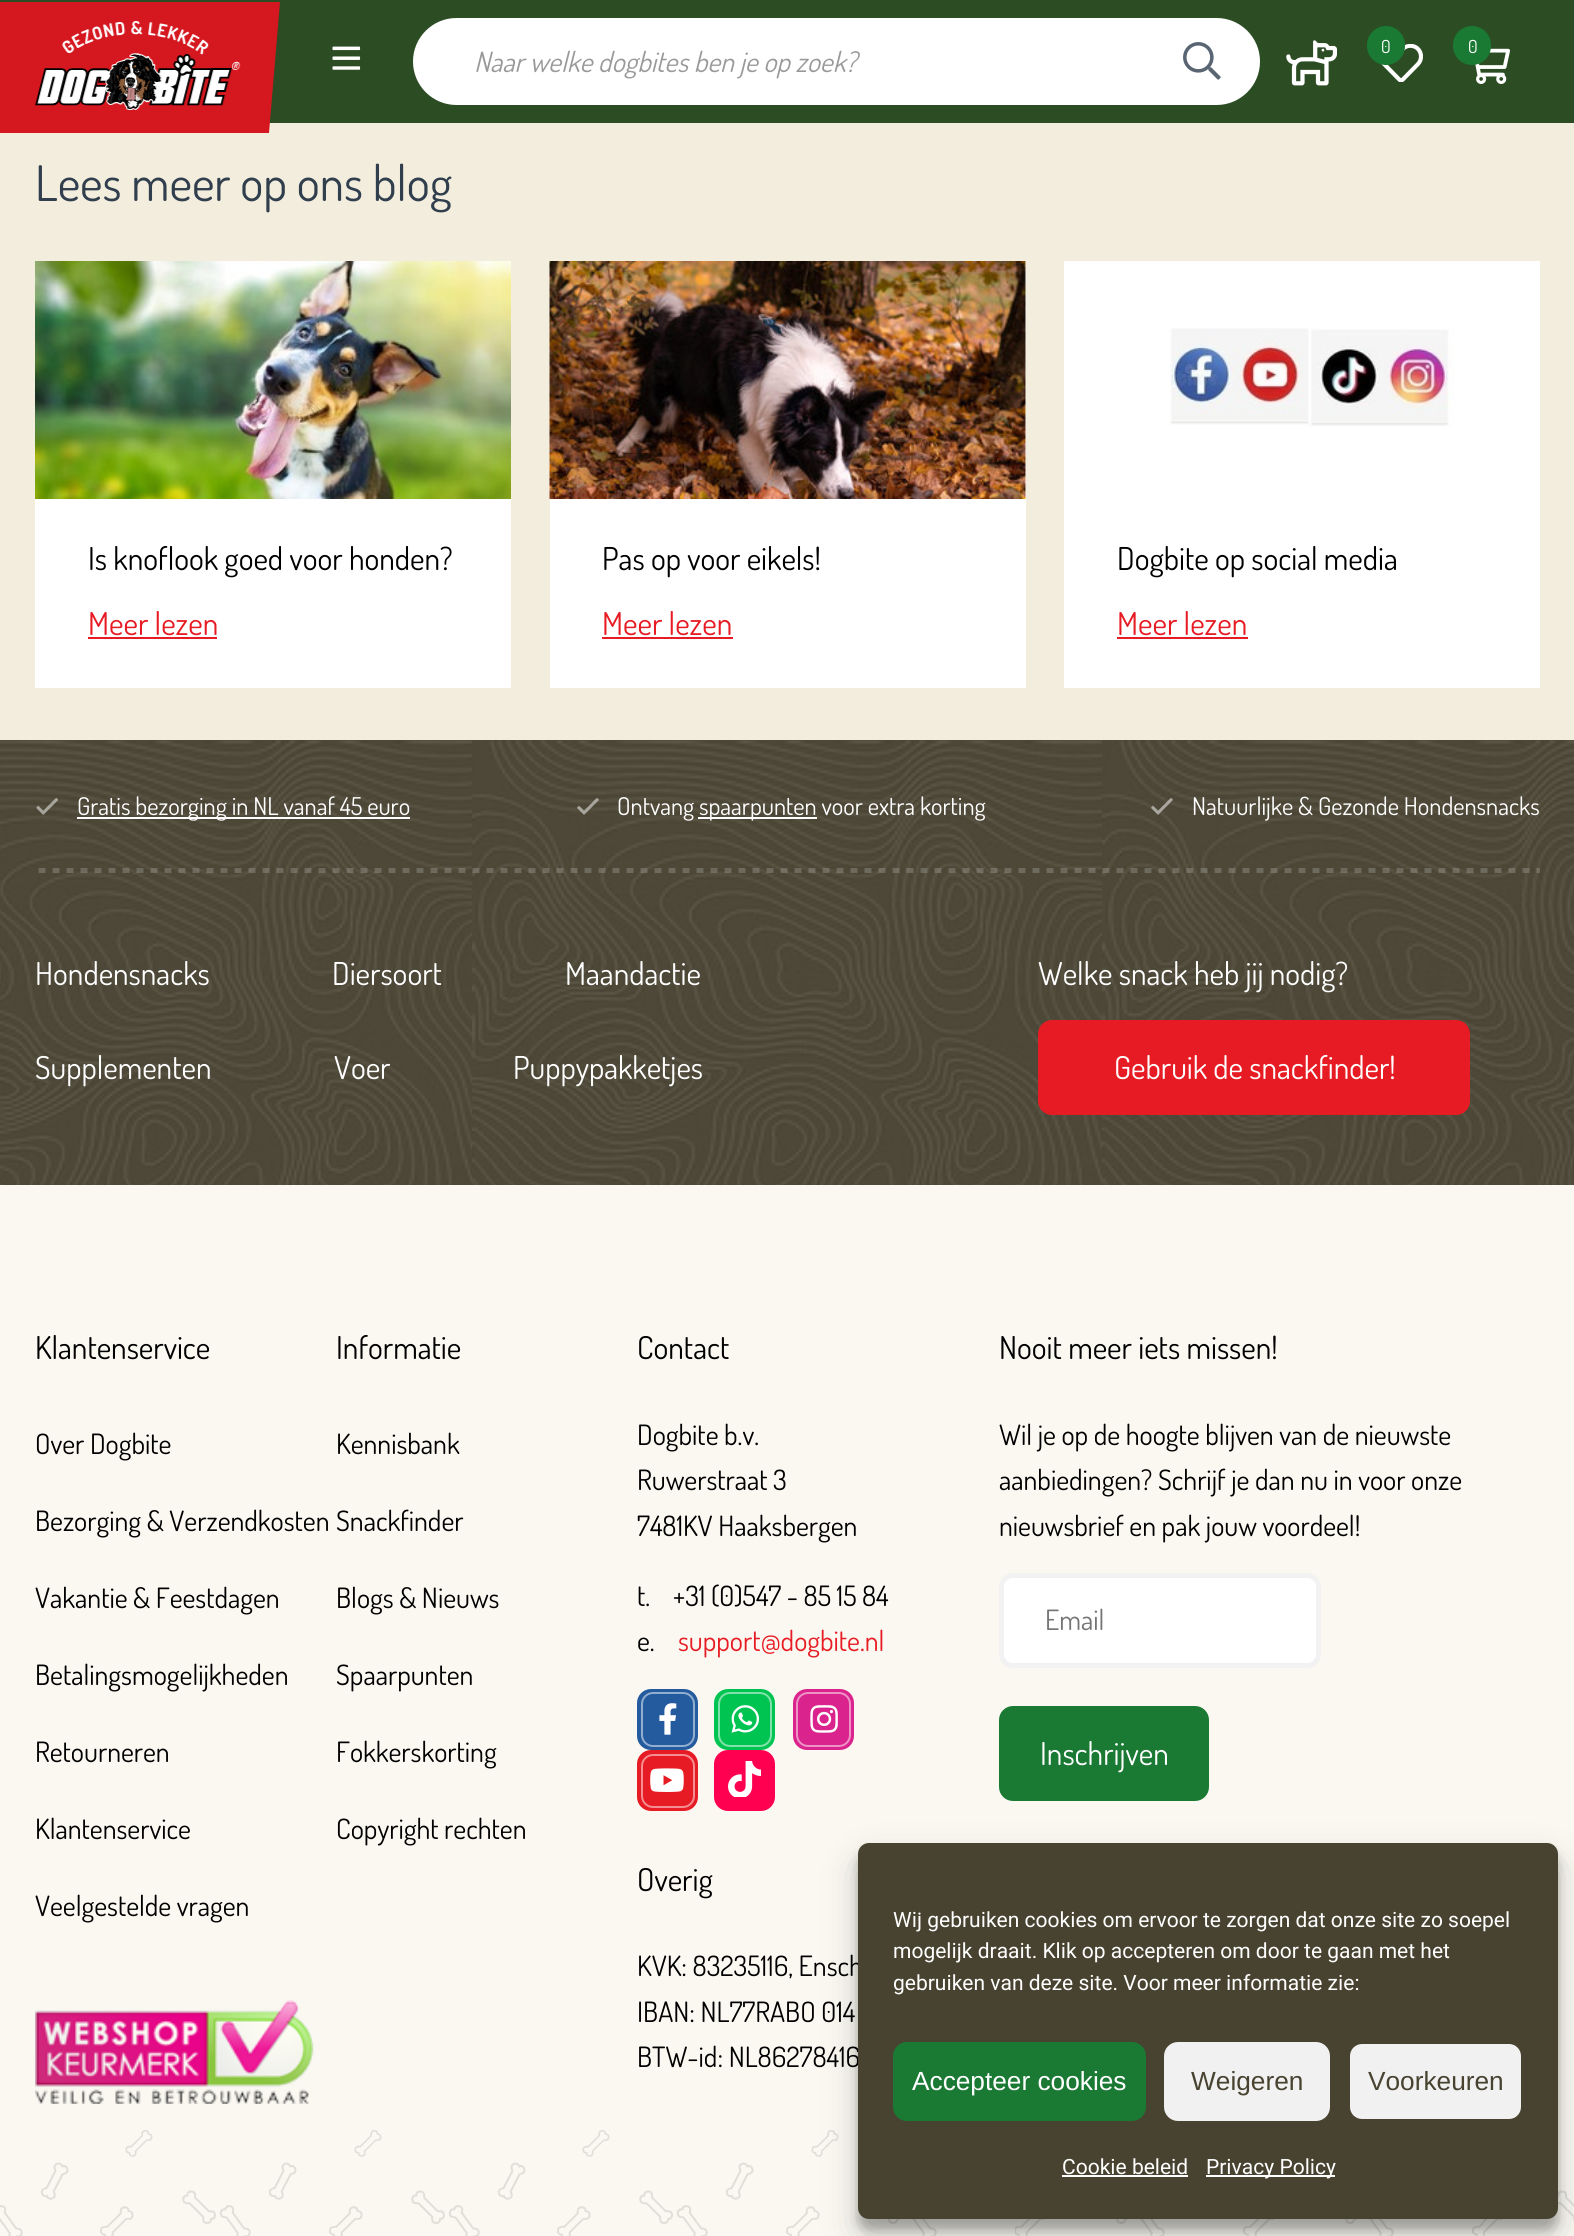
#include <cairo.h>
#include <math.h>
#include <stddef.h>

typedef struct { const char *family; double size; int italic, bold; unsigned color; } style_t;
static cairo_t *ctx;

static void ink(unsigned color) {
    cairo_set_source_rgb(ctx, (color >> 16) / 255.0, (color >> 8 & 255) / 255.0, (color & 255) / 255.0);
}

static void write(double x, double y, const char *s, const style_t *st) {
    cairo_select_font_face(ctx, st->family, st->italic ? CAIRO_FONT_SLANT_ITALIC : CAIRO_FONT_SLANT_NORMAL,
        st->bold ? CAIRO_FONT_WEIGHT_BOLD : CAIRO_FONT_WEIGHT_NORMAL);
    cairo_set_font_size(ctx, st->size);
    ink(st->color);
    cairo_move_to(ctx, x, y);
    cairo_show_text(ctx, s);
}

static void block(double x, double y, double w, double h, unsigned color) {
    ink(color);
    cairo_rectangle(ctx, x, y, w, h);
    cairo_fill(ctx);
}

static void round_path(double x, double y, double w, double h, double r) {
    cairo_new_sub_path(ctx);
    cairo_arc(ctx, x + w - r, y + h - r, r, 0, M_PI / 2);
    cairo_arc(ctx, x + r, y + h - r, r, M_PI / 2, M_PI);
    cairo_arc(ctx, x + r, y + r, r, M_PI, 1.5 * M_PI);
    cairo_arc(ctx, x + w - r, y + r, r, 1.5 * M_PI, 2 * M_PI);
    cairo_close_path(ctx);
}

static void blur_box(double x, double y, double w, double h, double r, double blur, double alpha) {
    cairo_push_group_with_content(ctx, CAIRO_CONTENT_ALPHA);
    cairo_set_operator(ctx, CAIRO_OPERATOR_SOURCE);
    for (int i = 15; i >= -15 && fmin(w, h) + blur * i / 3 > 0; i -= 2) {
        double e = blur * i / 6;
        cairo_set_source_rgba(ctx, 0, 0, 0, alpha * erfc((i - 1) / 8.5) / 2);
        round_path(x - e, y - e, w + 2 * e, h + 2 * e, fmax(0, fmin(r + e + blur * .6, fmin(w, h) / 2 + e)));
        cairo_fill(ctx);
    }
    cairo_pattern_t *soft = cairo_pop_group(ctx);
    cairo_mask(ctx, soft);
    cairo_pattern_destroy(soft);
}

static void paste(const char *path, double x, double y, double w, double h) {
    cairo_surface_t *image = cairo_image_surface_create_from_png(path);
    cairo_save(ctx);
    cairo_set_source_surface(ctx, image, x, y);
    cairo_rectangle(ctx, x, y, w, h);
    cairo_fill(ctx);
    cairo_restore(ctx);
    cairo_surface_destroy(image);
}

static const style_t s1 = {"Dosis", 18, 0, 0, 0xffffff};
static const style_t s2 = {"Dosis", 28, 1, 0, 0x999999};
static const style_t s3 = {"Dosis", 49, 0, 0, 0x303e4d};
static const style_t s4 = {"Dosis", 31.5, 0, 0, 0x000000};
static const style_t s5 = {"Dosis", 31.5, 0, 0, 0xe71b23};
static const style_t s6 = {"Dosis", 24.5, 0, 0, 0xffffff};
static const style_t s7 = {"Dosis", 31.5, 0, 0, 0xffffff};
static const style_t s8 = {"Dosis", 28, 0, 0, 0x000000};
static const style_t s9 = {"Dosis", 28, 0, 0, 0xe71b23};
static const style_t s10 = {"Dosis", 28, 0, 0, 0x757575};
static const style_t s11 = {"Heebo", 21, 0, 0, 0xffffff};
static const style_t s12 = {"Liberation Sans", 26.25, 0, 0, 0xffffff};
static const style_t s13 = {"Liberation Sans", 26.25, 0, 0, 0x484330};

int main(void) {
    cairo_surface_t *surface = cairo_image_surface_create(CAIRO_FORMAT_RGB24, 1574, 2236);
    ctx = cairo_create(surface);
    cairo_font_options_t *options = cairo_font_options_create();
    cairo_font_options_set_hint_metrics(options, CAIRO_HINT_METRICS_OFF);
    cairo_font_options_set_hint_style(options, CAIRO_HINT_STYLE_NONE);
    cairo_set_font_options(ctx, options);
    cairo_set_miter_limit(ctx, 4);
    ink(0xf2eddd);
    cairo_paint(ctx);
    block(0, 0, 1574, 123, 0x2c4c24);
    ink(0xd5171f);
    cairo_new_path(ctx);
    cairo_move_to(ctx, -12, 2);
    cairo_line_to(ctx, 280, 2);
    cairo_line_to(ctx, 269, 133);
    cairo_line_to(ctx, -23, 133);
    cairo_close_path(ctx);
    cairo_fill(ctx);
    paste("pic1.png", 35, 21, 206, 89);
    paste("pic2.png", 1286, 40, 51, 46);
    paste("pic3.png", 1381, 44, 42, 38);
    ink(0x1a7933);
    round_path(1367, 26, 38, 39, 19);
    cairo_fill(ctx);
    write(1381, 53, "0", &s1);
    paste("pic4.png", 1475, 48, 35, 36);
    ink(0x1a7933);
    round_path(1453, 26, 38, 39, 19);
    cairo_fill(ctx);
    write(1468, 53, "0", &s1);
    paste("pic5.png", 332, 46, 29, 24);
    round_path(413, 18, 847, 87, 43.5);
    cairo_fill(ctx);
    write(474, 72, "Naar welke dogbites ben je op zoek?", &s2);
    paste("pic6.png", 1183, 42, 38, 38);
    write(35, 201, "Lees meer op ons blog", &s3);
    block(35, 499, 476, 189, 0xffffff);
    paste("pic7.png", 35, 261, 476, 238);
    write(88, 570, "Is knoflook goed voor honden?", &s4);
    write(88, 635, "Meer lezen", &s5);
    block(88, 637, 129, 2, 0xe71b23);
    block(550, 261, 476, 427, 0xffffff);
    paste("pic8.png", 549, 261, 477, 238);
    write(602, 570, "Pas op voor eikels!", &s4);
    write(602, 635, "Meer lezen", &s5);
    block(602, 637, 131, 2, 0xe71b23);
    block(1064, 261, 476, 427, 0xffffff);
    paste("pic9.png", 1170, 328, 285, 99);
    write(1117, 570, "Dogbite op social media", &s4);
    write(1117, 635, "Meer lezen", &s5);
    block(1117, 637, 131, 2, 0xe71b23);
    block(0, 740, 1574, 445, 0x4d4733);
    paste("pic10.png", 0, 740, 1574, 445);
    cairo_save(ctx);
    cairo_rectangle(ctx, 35, 868, 1505, 5);
    cairo_clip(ctx);
    cairo_new_path(ctx);
    cairo_move_to(ctx, -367.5, 870.5);
    cairo_line_to(ctx, 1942.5, 870.5);
    cairo_set_source_rgba(ctx, 0.949, 0.949, 0.949, 0.2);
    cairo_set_line_width(ctx, 5.2);
    cairo_set_dash(ctx, (double[]){7, 7}, 2, 0);
    cairo_stroke(ctx);
    cairo_restore(ctx);
    paste("pic11.png", 36, 797, 23, 18);
    block(77, 817, 333, 2, 0xffffff);
    write(77, 815, "Gratis bezorging in NL vanaf 45 euro", &s6);
    paste("pic12.png", 577, 798, 22, 17);
    write(617, 815, "Ontvang", &s6);
    block(698, 817, 119, 2, 0xffffff);
    write(699, 815, "spaarpunten voor extra korting", &s6);
    paste("pic13.png", 1151, 798, 22, 17);
    write(1192, 815, "Natuurlijke & Gezonde Hondensnacks", &s6);
    write(35, 985, "Hondensnacks", &s7);
    write(332, 985, "Diersoort", &s7);
    write(565, 985, "Maandactie", &s7);
    write(35, 1079, "Supplementen", &s7);
    write(334, 1079, "Voer", &s7);
    write(513, 1079, "Puppypakketjes", &s7);
    write(1038, 985, "Welke snack heb jij nodig?", &s7);
    ink(0xe71b23);
    round_path(1040.5, 1022.5, 427, 90, 11.5);
    cairo_fill_preserve(ctx);
    cairo_set_line_width(ctx, 5);
    cairo_stroke(ctx);
    write(1114, 1079, "Gebruik de snackfinder!", &s7);
    block(0, 1185, 1574, 1051, 0xfaf8f1);
    paste("pic14.png", 0, 2130, 1574, 106);
    write(35, 1359, "Klantenservice", &s4);
    write(35, 1454, "Over Dogbite", &s8);
    write(35, 1531, "Bezorging & Verzendkosten", &s8);
    write(35, 1608, "Vakantie & Feestdagen", &s8);
    write(35, 1685, "Betalingsmogelijkheden", &s8);
    write(35, 1762, "Retourneren", &s8);
    write(35, 1839, "Klantenservice", &s8);
    write(35, 1916, "Veelgestelde vragen", &s8);
    write(336, 1359, "Informatie", &s4);
    write(336, 1454, "Kennisbank", &s8);
    write(336, 1531, "Snackfinder", &s8);
    write(336, 1608, "Blogs & Nieuws", &s8);
    write(336, 1685, "Spaarpunten", &s8);
    write(336, 1762, "Fokkerskorting", &s8);
    write(336, 1839, "Copyright rechten", &s8);
    paste("pic15.png", 35, 2000, 279, 104);
    write(637, 1359, "Contact", &s4);
    write(637, 1445, "Dogbite b.v.", &s8);
    write(637, 1490, "Ruwerstraat 3", &s8);
    write(637, 1536, "7481KV Haaksbergen", &s8);
    write(637, 1606, "t.", &s8);
    write(673, 1606, "+31 (0)547 - 85 15 84", &s8);
    write(637, 1651, "e.", &s8);
    write(678, 1651, "support@dogbite.nl", &s9);
    ink(0x235b9e);
    round_path(637, 1689, 61, 61, 14);
    cairo_fill(ctx);
    round_path(642, 1693, 52, 53, 11);
    ink(0x91adcf);
    cairo_set_line_width(ctx, 2);
    cairo_stroke(ctx);
    paste("pic16.png", 659, 1703, 18, 32);
    ink(0x00c451);
    round_path(714, 1689, 61, 61, 14);
    cairo_fill(ctx);
    round_path(719, 1693, 52, 53, 11);
    ink(0x80e2a8);
    cairo_stroke(ctx);
    paste("pic17.png", 731, 1705, 29, 28);
    ink(0xdb238d);
    round_path(793, 1689, 61, 61, 14);
    cairo_fill(ctx);
    round_path(797, 1693, 53, 53, 11);
    ink(0xed91c6);
    cairo_stroke(ctx);
    paste("pic18.png", 810, 1705, 28, 28);
    ink(0xe71b23);
    round_path(637, 1750, 61, 61, 14);
    cairo_fill(ctx);
    round_path(642, 1755, 52, 52, 11);
    ink(0xf38d91);
    cairo_stroke(ctx);
    paste("pic19.png", 650, 1768, 34, 24);
    ink(0xff0050);
    round_path(714, 1750, 61, 61, 14);
    cairo_fill(ctx);
    paste("pic20.png", 728, 1761, 33, 36);
    write(637, 1891, "Overig", &s4);
    write(637, 1976, "KVK: 83235116, Ensch", &s8);
    write(637, 2022, "IBAN: NL77RABO 014", &s8);
    write(637, 2067, "BTW-id: NL86278416", &s8);
    write(999, 1359, "Nooit meer iets missen!", &s4);
    write(999, 1445, "Wil je op de hoogte blijven van de nieuwste", &s8);
    write(999, 1490, "aanbiedingen? Schrijf je dan nu in voor onze", &s8);
    write(999, 1536, "nieuwsbrief en pak jouw voordeel!", &s8);
    ink(0xffffff);
    round_path(1001.5, 1575.5, 317, 90, 11.5);
    cairo_fill_preserve(ctx);
    ink(0xf2f2f2);
    cairo_set_line_width(ctx, 5);
    cairo_stroke(ctx);
    write(1045, 1630, "Email", &s10);
    ink(0x1a7933);
    round_path(1001.5, 1708.5, 205, 90, 11.5);
    cairo_fill_preserve(ctx);
    cairo_stroke(ctx);
    write(1040, 1765, "Inschrijven", &s7);
    ink(0x000000);
    blur_box(858, 1853, 700, 377, 11, 5, 0.23);
    blur_box(858, 1860, 700, 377, 11, 17.5, 0.19);
    ink(0x484330);
    round_path(858, 1843, 700, 376, 11);
    cairo_fill(ctx);
    write(893, 1927, "Wij gebruiken cookies om ervoor te zorgen dat onze site zo soepel", &s11);
    write(893, 1958, "mogelijk draait. Klik op accepteren om door te gaan met het", &s11);
    write(893, 1990, "gebruiken van deze site. Voor meer informatie zie:", &s11);
    ink(0x1a7933);
    round_path(894, 2043, 251, 77, 13);
    cairo_fill_preserve(ctx);
    cairo_set_line_width(ctx, 2);
    cairo_stroke(ctx);
    write(912, 2090, "Accepteer cookies", &s12);
    ink(0xf1f1f1);
    round_path(1165, 2043, 164, 77, 13);
    cairo_fill_preserve(ctx);
    cairo_stroke(ctx);
    write(1191, 2090, "Weigeren", &s13);
    ink(0xf1f1f1);
    round_path(1349, 2043, 173, 77, 13);
    cairo_fill_preserve(ctx);
    ink(0x484330);
    cairo_stroke(ctx);
    write(1368, 2090, "Voorkeuren", &s13);
    write(1062, 2174, "Cookie beleid", &s11);
    block(1062, 2175, 126, 2, 0xffffff);
    block(1206, 2175, 129, 2, 0xffffff);
    write(1206, 2174, "Privacy Policy", &s11);
    cairo_surface_write_to_png(surface, "screenshot.png");
    cairo_font_options_destroy(options);
    cairo_destroy(ctx);
    cairo_surface_destroy(surface);
    return 0;
}
